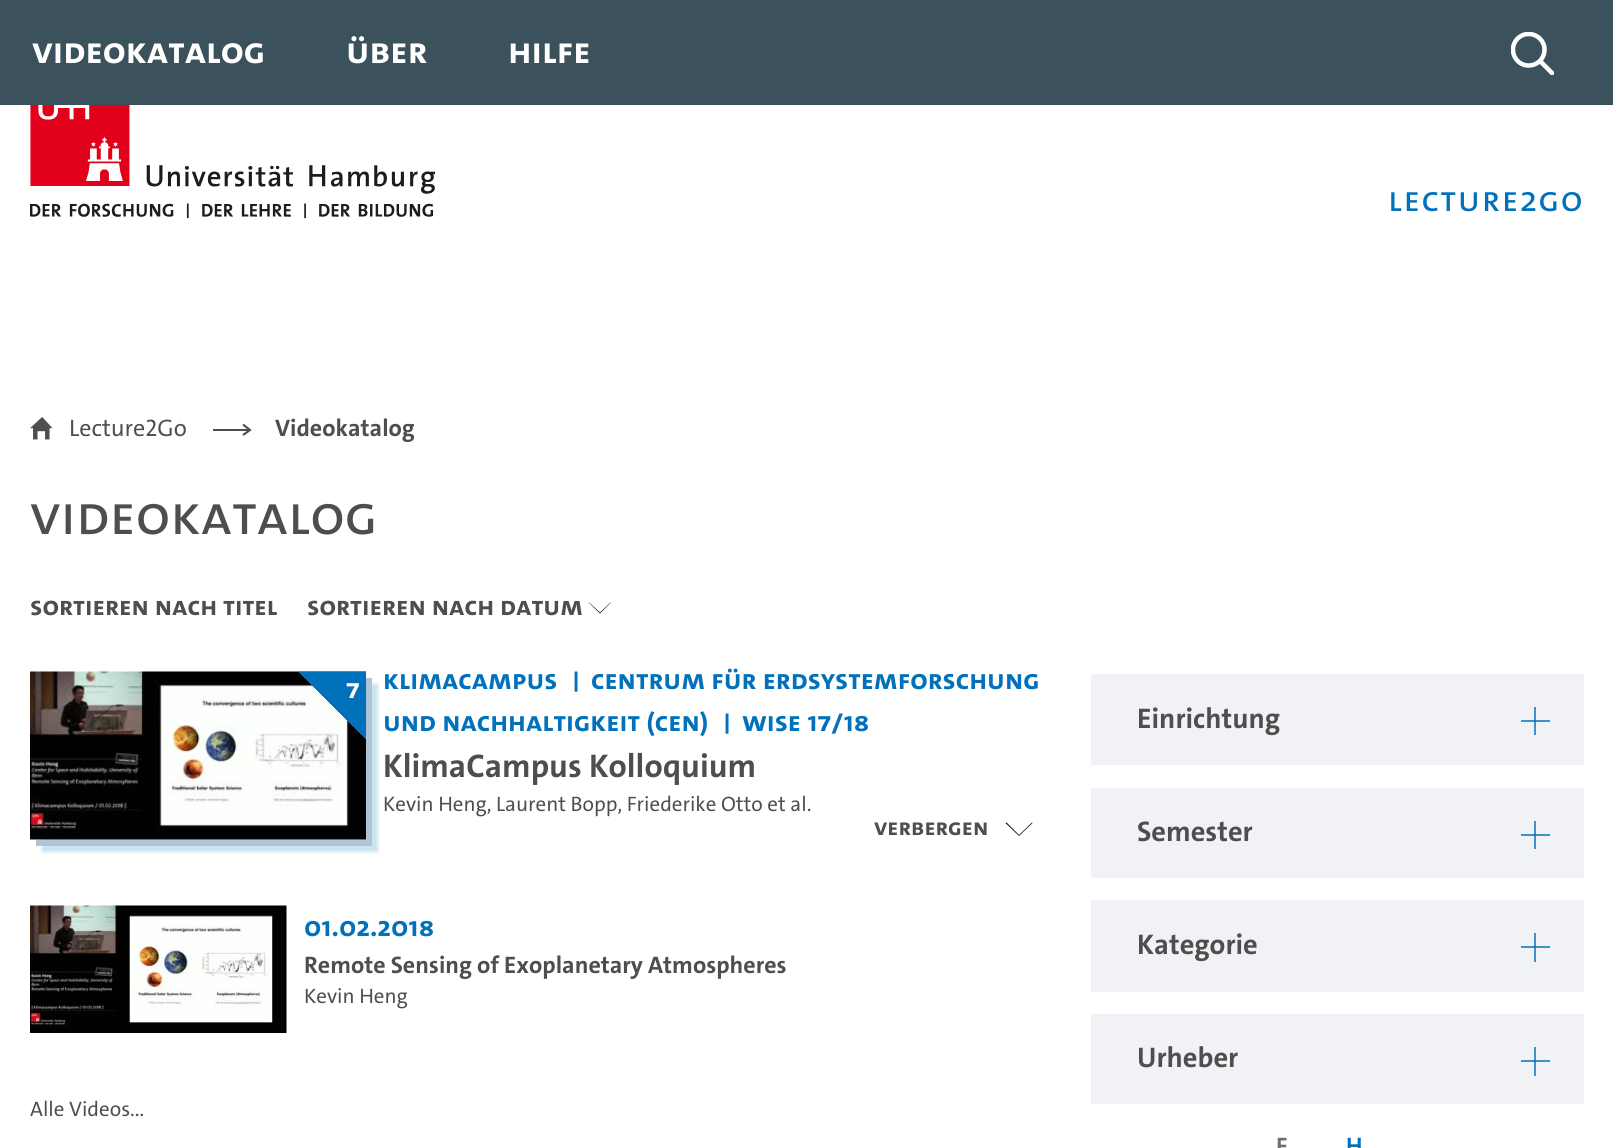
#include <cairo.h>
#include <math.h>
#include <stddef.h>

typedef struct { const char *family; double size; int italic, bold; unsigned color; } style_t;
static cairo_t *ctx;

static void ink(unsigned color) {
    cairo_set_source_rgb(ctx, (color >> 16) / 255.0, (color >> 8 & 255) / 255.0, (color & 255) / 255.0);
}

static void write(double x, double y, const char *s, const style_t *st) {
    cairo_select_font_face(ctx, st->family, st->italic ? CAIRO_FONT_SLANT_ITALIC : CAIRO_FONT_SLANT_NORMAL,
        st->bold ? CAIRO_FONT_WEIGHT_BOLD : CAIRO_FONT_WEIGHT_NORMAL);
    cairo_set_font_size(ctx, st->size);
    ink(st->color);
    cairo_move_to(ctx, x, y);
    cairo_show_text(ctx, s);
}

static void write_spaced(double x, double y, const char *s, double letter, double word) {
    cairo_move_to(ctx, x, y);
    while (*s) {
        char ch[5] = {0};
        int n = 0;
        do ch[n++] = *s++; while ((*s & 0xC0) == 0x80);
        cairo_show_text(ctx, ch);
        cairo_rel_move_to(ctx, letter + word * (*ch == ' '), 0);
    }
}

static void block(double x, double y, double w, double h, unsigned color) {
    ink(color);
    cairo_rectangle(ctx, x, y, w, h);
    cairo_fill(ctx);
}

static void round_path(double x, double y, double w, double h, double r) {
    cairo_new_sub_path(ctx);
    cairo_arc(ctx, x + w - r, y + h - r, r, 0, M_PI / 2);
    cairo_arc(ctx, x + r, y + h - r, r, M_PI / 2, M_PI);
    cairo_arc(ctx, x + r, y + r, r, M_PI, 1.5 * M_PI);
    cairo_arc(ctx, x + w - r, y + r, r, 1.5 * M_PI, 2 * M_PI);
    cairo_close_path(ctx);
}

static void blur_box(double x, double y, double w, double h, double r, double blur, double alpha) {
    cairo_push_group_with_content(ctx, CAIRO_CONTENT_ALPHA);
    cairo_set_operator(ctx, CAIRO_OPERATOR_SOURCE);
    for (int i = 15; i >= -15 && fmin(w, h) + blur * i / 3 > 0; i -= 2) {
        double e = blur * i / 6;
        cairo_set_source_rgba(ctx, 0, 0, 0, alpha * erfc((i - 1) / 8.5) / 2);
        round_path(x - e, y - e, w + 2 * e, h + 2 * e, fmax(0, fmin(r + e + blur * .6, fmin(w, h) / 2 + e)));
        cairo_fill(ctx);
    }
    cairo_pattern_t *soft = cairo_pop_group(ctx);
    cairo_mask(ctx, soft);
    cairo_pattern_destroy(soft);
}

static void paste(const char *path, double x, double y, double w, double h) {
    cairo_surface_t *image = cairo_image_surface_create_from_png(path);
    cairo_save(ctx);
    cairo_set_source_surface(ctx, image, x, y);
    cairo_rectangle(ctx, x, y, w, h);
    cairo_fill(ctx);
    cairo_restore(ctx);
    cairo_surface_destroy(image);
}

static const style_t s1 = {"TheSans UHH", 37.5, 0, 1, 0xffffff};
static const style_t s2 = {"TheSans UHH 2", 24, 0, 0, 0x4e4e4e};
static const style_t s3 = {"TheSans UHH 2", 24, 0, 1, 0x4e4e4e};
static const style_t s4 = {"TheSans UHH", 57, 0, 0, 0x4e4e4e};
static const style_t s5 = {"TheSans UHH", 27, 0, 1, 0x4e4e4e};
static const style_t s6 = {"TheSans UHH", 28.5, 0, 1, 0xffffff};
static const style_t s7 = {"TheSans UHH", 28.5, 0, 1, 0x0271bb};
static const style_t s8 = {"TheSans UHH 2", 33, 0, 1, 0x4e4e4e};
static const style_t s9 = {"TheSans UHH 2", 21, 0, 0, 0x4e4e4e};
static const style_t s10 = {"TheSans UHH", 24, 0, 1, 0x4e4e4e};
static const style_t s11 = {"TheSans UHH 2", 28.5, 0, 1, 0x4e4e4e};
static const style_t s12 = {"TheSans UHH 2", 24, 0, 1, 0x707070};
static const style_t s13 = {"TheSans UHH 2", 24, 0, 1, 0x0271bb};

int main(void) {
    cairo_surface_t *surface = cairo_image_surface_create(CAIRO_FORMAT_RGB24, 1613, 1148);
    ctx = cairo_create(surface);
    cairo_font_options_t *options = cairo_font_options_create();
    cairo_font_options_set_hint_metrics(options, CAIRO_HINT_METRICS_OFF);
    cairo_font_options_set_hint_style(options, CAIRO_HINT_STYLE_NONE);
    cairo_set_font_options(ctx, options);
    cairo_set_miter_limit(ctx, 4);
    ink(0xffffff);
    cairo_paint(ctx);
    block(0, 0, 1613, 105, 0x3b515c);
    write(32, 63, "Videokatalog", &s1);
    write(346, 63, "Über", &s1);
    write(508, 63, "Hilfe", &s1);
    cairo_save(ctx);
    cairo_rectangle(ctx, 1511, 32, 43, 43);
    cairo_clip(ctx);
    cairo_new_path(ctx);
    cairo_move_to(ctx, 1528.5, 65.5);
    cairo_curve_to(ctx, 1537.5, 65.5, 1544.5, 58.5, 1544.5, 49.5);
    cairo_curve_to(ctx, 1544.5, 41, 1537.5, 34, 1528.5, 34);
    cairo_curve_to(ctx, 1520, 34, 1513, 41, 1513, 49.5);
    cairo_curve_to(ctx, 1513, 58.5, 1520, 65.5, 1528.5, 65.5);
    cairo_close_path(ctx);
    cairo_move_to(ctx, 1540, 61);
    cairo_line_to(ctx, 1552, 73);
    cairo_set_line_width(ctx, 4.5);
    cairo_set_line_cap(ctx, CAIRO_LINE_CAP_ROUND);
    cairo_stroke(ctx);
    cairo_restore(ctx);
    paste("pic1.png", 30, 105, 405, 114);
    cairo_select_font_face(ctx, "TheSans UHH", CAIRO_FONT_SLANT_NORMAL, CAIRO_FONT_WEIGHT_NORMAL);
    cairo_set_font_size(ctx, 36);
    ink(0x0271bb);
    write_spaced(1388, 211, "Lecture2Go", 1.5, 0);
    paste("pic2.png", 30, 417, 23, 23);
    write(69, 436, "Lecture2Go", &s2);
    block(213, 429, 36, 2, 0x4e4e4e);
    cairo_new_path(ctx);
    cairo_move_to(ctx, 243, 424.5);
    cairo_line_to(ctx, 250, 430);
    cairo_line_to(ctx, 243, 435);
    cairo_set_line_width(ctx, 2.1);
    cairo_stroke(ctx);
    write(275, 436, "Videokatalog", &s3);
    write(30, 534, "Videokatalog", &s4);
    write(30, 615, "Sortieren nach Titel", &s5);
    write(307, 615, "Sortieren nach Datum", &s5);
    ink(0x010101);
    cairo_new_path(ctx);
    cairo_move_to(ctx, 589, 602.5);
    cairo_line_to(ctx, 600, 612.5);
    cairo_line_to(ctx, 610.5, 602.5);
    cairo_line_to(ctx, 611, 602.5);
    cairo_line_to(ctx, 600, 613.5);
    cairo_line_to(ctx, 588.5, 602.5);
    cairo_close_path(ctx);
    cairo_fill(ctx);
    ink(0xcce2f0);
    blur_box(42, 684, 336, 168, 0, 1.5, 1);
    ink(0xadc5d5);
    cairo_new_path(ctx);
    cairo_move_to(ctx, 36, 840);
    cairo_line_to(ctx, 36, 846);
    cairo_line_to(ctx, 372, 846);
    cairo_line_to(ctx, 372, 678);
    cairo_line_to(ctx, 366, 678);
    cairo_line_to(ctx, 366, 840);
    cairo_close_path(ctx);
    cairo_fill(ctx);
    paste("pic3.png", 30, 671, 336, 169);
    write(346, 698, "7", &s6);
    write(383, 689, "KlimaCampus", &s7);
    write(572, 689, "|", &s7);
    write(591, 689, "Centrum für Erdsystemforschung", &s7);
    write(383, 731, "und Nachhaltigkeit (CEN)", &s7);
    write(723, 731, "|", &s7);
    write(742, 731, "WiSe 17/18", &s7);
    write(383, 777, "KlimaCampus Kolloquium", &s8);
    write(383, 811, "Kevin Heng, Laurent Bopp, Friederike Otto et al.", &s9);
    write(874, 835, "Verbergen", &s10);
    ink(0x010101);
    cairo_new_path(ctx);
    cairo_move_to(ctx, 1006.5, 822.5);
    cairo_line_to(ctx, 1019, 835);
    cairo_line_to(ctx, 1032, 822.5);
    cairo_line_to(ctx, 1032.5, 823);
    cairo_line_to(ctx, 1019, 836);
    cairo_line_to(ctx, 1005.5, 823);
    cairo_close_path(ctx);
    cairo_fill(ctx);
    paste("pic4.png", 30, 905, 257, 128);
    write(304, 936, "01.02.2018", &s7);
    write(304, 973, "Remote Sensing of Exoplanetary Atmospheres", &s3);
    write(304, 1003, "Kevin Heng", &s9);
    write(30, 1116, "Alle Videos...", &s9);
    block(1091, 674, 493, 91, 0xf1f2f5);
    block(1534, 707, 2, 28, 0x3e91ca);
    write(1137, 728, "Einrichtung", &s11);
    block(1521, 720, 29, 2, 0x3e91ca);
    block(1534, 720, 2, 2, 0x1179bf);
    block(1091, 788, 493, 90, 0xf1f2f5);
    block(1534, 821, 2, 28, 0x3e91ca);
    write(1137, 841, "Semester", &s11);
    block(1521, 834, 29, 2, 0x3e91ca);
    block(1534, 834, 2, 2, 0x1179bf);
    block(1091, 900, 493, 92, 0xf1f2f5);
    block(1534, 933, 2, 29, 0x3e91ca);
    write(1137, 954, "Kategorie", &s11);
    block(1521, 946, 29, 2, 0x3e91ca);
    block(1534, 946, 2, 2, 0x1179bf);
    block(1091, 1014, 493, 90, 0xf1f2f5);
    block(1534, 1047, 2, 29, 0x3e91ca);
    write(1137, 1067, "Urheber", &s11);
    block(1521, 1060, 29, 2, 0x3e91ca);
    block(1534, 1060, 2, 2, 0x1179bf);
    write(1276, 1154, "F", &s12);
    write(1346, 1154, "H", &s13);
    cairo_surface_write_to_png(surface, "screenshot.png");
    cairo_font_options_destroy(options);
    cairo_destroy(ctx);
    cairo_surface_destroy(surface);
    return 0;
}
